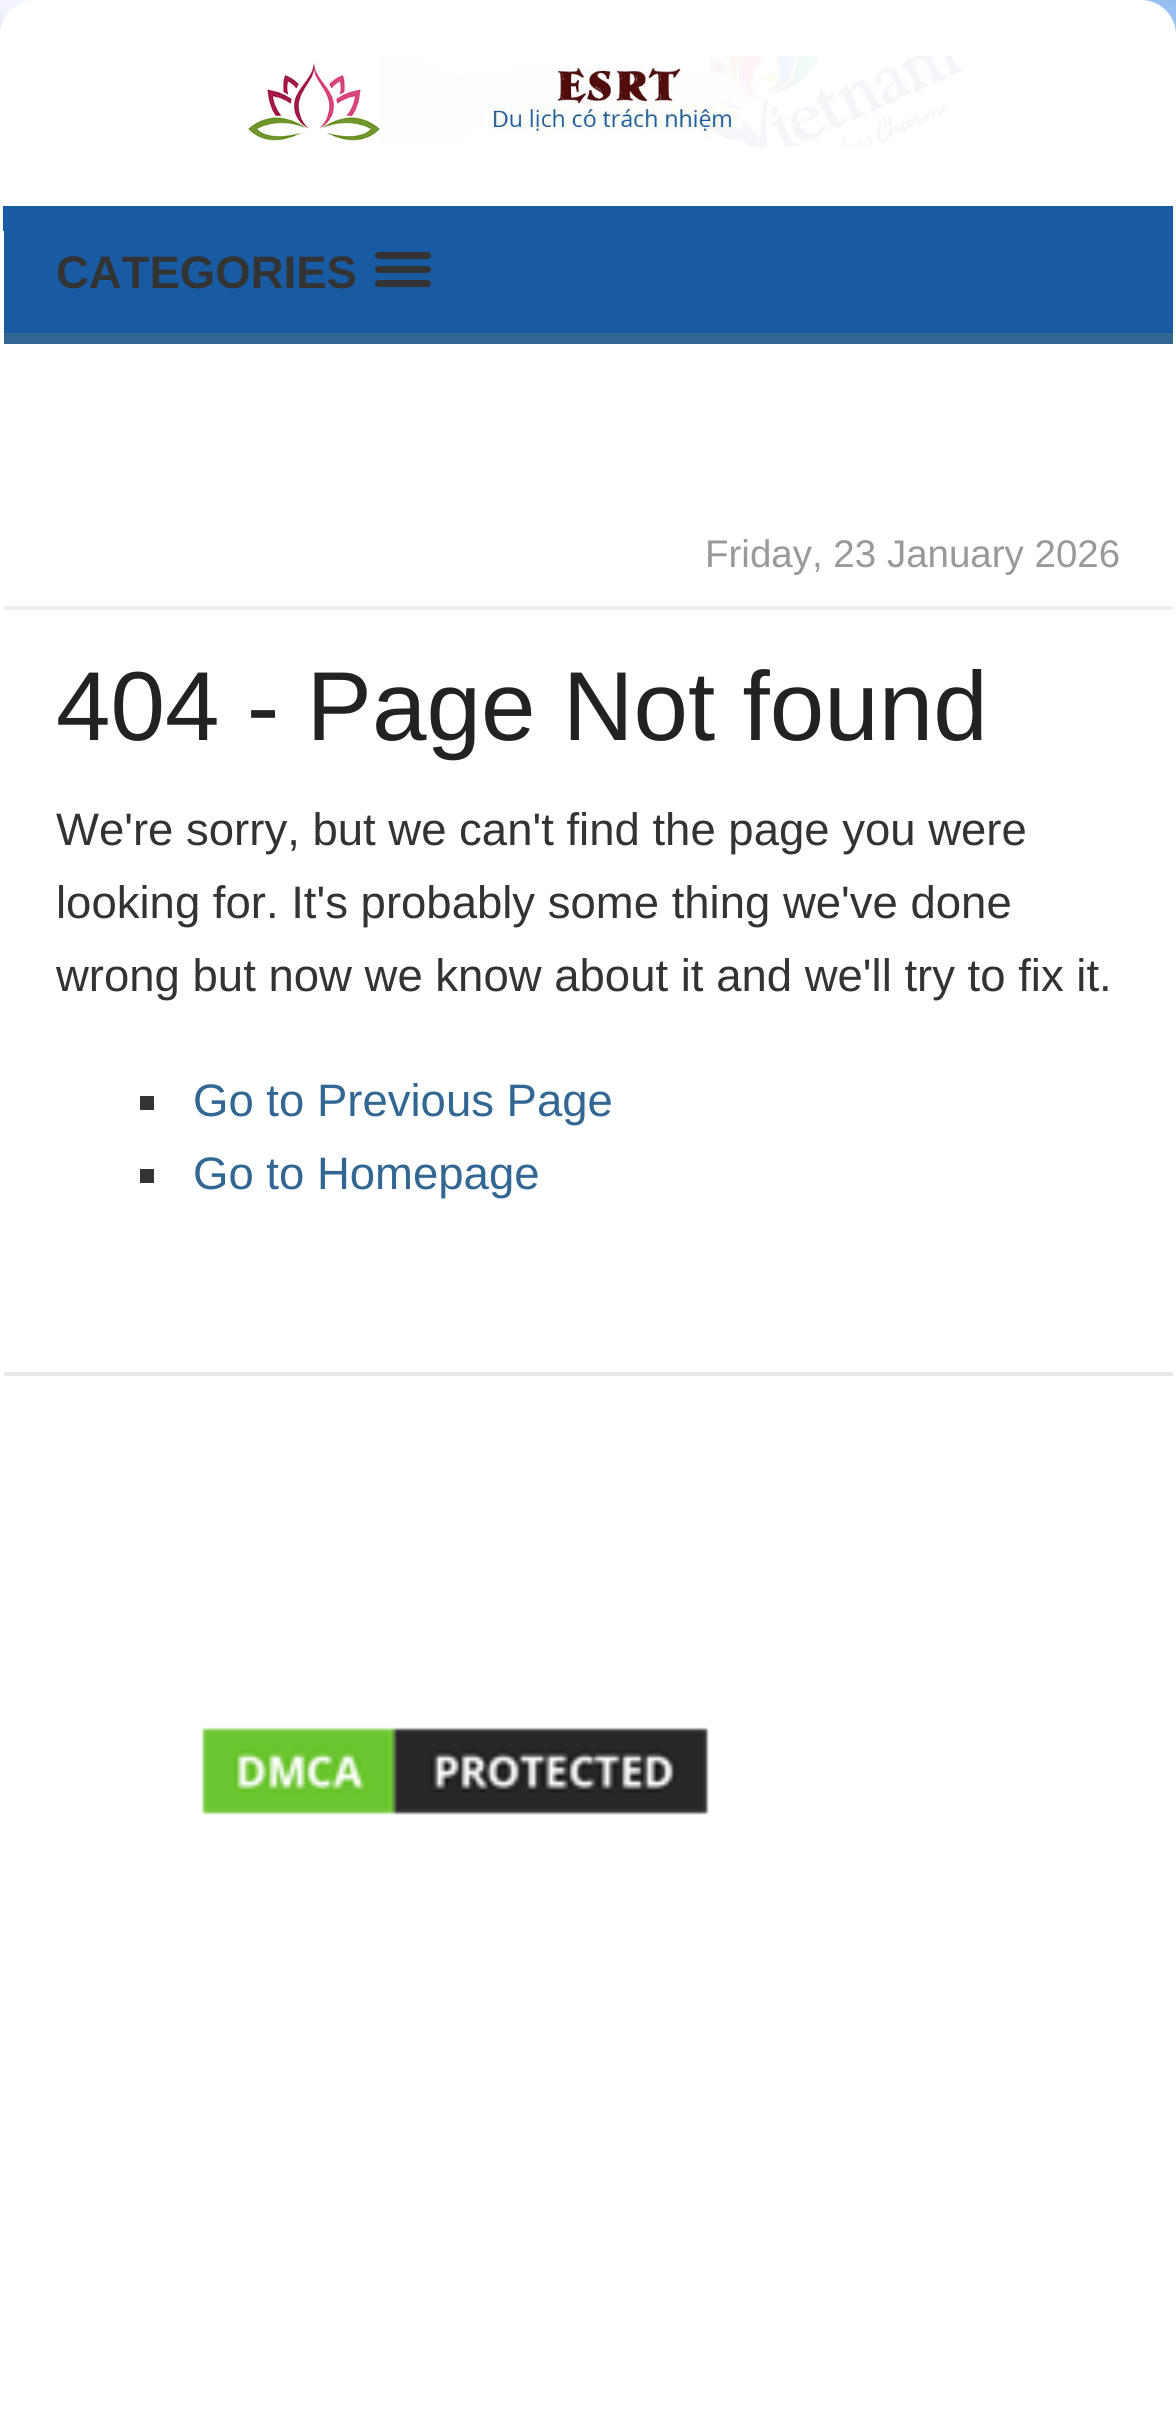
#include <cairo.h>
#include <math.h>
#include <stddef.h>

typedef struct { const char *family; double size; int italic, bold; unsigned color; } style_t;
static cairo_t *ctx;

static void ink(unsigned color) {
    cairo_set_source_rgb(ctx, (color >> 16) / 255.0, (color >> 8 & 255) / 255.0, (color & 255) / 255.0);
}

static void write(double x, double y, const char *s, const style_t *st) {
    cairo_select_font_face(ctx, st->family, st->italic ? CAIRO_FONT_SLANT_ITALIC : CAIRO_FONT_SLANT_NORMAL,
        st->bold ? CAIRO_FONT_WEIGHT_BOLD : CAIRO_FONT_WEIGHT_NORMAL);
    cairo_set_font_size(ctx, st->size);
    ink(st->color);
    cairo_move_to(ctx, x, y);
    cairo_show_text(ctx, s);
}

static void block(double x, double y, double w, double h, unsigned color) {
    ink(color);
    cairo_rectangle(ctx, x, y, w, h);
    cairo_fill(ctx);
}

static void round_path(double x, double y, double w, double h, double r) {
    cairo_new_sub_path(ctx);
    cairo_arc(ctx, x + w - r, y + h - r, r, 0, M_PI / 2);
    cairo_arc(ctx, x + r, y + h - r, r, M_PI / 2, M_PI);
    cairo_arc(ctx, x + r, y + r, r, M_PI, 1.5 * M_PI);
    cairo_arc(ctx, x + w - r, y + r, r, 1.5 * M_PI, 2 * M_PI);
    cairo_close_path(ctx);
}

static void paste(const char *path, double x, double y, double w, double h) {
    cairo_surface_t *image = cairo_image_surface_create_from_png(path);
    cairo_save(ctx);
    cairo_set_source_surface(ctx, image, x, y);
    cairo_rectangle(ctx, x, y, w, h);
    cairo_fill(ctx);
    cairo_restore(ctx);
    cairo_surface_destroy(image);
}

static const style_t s1 = {"Liberation Sans", 45.5, 0, 1, 0x333333};
static const style_t s2 = {"Liberation Sans", 38.5, 0, 0, 0x999999};
static const style_t s3 = {"Liberation Sans", 98, 0, 0, 0x222222};
static const style_t s4 = {"Liberation Sans", 45.5, 0, 0, 0x333333};
static const style_t s5 = {"Liberation Sans", 45.5, 0, 0, 0x326693};

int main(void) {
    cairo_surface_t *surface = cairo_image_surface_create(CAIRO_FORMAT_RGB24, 1176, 2410);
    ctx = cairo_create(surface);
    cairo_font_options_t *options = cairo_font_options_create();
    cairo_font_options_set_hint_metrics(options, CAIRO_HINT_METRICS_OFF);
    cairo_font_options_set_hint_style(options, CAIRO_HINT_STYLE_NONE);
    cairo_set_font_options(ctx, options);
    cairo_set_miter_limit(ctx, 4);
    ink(0xffffff);
    cairo_paint(ctx);
    paste("pic1.png", 0, 0, 1176, 35);
    ink(0xffffff);
    round_path(2, 2, 1172, 1827, 33);
    cairo_fill_preserve(ctx);
    cairo_set_line_width(ctx, 4);
    cairo_stroke(ctx);
    paste("pic2.png", 248, 56, 716, 91);
    block(4, 231, 1169, 102, 0x195ba2);
    block(3, 206, 1170, 25, 0x185ba2);
    block(4, 333, 1169, 11, 0x326693);
    write(56, 288, "CATEGORIES", &s1);
    round_path(375, 252, 56, 7, 3.5);
    cairo_fill(ctx);
    round_path(375, 266, 56, 7, 3.5);
    cairo_fill(ctx);
    round_path(375, 280, 56, 7, 3.5);
    cairo_fill(ctx);
    write(705, 567, "Friday, 23 January 2026", &s2);
    block(4, 606, 1169, 4, 0xecede8);
    write(56, 740, "404 - Page Not found", &s3);
    write(56, 845, "We're sorry, but we can't find the page you were", &s4);
    write(56, 918, "looking for. It's probably some thing we've done", &s4);
    write(56, 991, "wrong but now we know about it and we'll try to fix it.", &s4);
    block(140, 1096, 14, 14, 0x333333);
    write(193, 1116, "Go to Previous Page", &s5);
    block(140, 1169, 14, 14, 0x333333);
    write(193, 1189, "Go to Homepage", &s5);
    block(4, 1372, 1169, 4, 0xe9e9e9);
    paste("pic3.png", 201, 1727, 508, 88);
    cairo_surface_write_to_png(surface, "screenshot.png");
    cairo_font_options_destroy(options);
    cairo_destroy(ctx);
    cairo_surface_destroy(surface);
    return 0;
}
